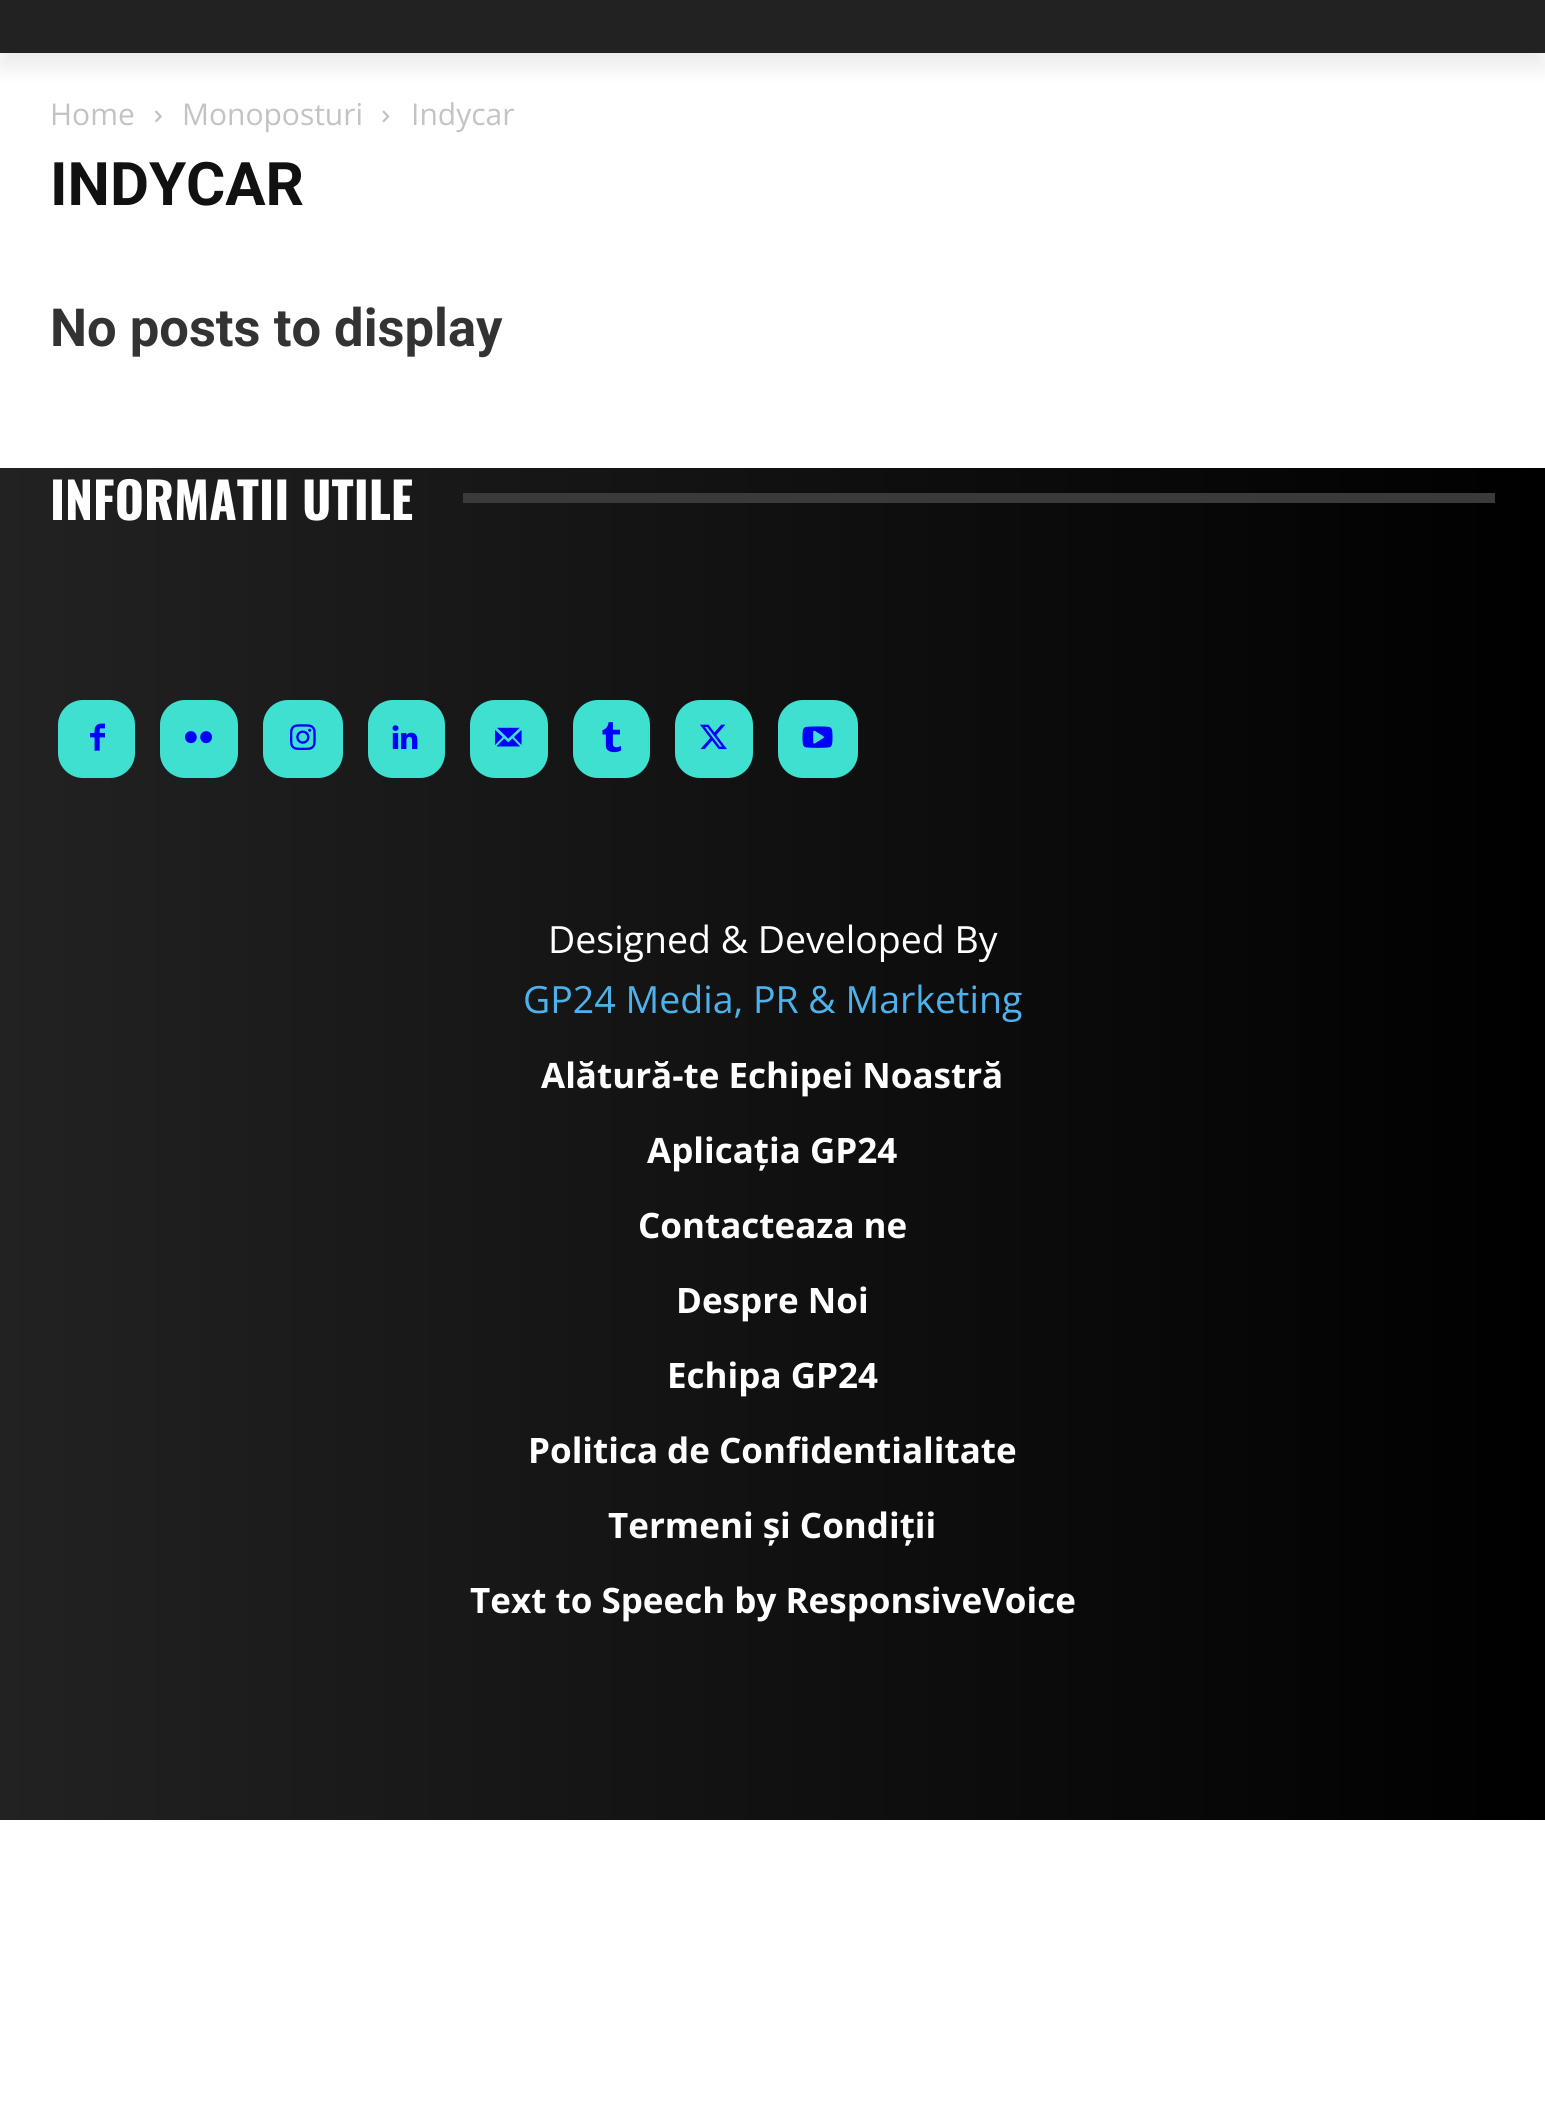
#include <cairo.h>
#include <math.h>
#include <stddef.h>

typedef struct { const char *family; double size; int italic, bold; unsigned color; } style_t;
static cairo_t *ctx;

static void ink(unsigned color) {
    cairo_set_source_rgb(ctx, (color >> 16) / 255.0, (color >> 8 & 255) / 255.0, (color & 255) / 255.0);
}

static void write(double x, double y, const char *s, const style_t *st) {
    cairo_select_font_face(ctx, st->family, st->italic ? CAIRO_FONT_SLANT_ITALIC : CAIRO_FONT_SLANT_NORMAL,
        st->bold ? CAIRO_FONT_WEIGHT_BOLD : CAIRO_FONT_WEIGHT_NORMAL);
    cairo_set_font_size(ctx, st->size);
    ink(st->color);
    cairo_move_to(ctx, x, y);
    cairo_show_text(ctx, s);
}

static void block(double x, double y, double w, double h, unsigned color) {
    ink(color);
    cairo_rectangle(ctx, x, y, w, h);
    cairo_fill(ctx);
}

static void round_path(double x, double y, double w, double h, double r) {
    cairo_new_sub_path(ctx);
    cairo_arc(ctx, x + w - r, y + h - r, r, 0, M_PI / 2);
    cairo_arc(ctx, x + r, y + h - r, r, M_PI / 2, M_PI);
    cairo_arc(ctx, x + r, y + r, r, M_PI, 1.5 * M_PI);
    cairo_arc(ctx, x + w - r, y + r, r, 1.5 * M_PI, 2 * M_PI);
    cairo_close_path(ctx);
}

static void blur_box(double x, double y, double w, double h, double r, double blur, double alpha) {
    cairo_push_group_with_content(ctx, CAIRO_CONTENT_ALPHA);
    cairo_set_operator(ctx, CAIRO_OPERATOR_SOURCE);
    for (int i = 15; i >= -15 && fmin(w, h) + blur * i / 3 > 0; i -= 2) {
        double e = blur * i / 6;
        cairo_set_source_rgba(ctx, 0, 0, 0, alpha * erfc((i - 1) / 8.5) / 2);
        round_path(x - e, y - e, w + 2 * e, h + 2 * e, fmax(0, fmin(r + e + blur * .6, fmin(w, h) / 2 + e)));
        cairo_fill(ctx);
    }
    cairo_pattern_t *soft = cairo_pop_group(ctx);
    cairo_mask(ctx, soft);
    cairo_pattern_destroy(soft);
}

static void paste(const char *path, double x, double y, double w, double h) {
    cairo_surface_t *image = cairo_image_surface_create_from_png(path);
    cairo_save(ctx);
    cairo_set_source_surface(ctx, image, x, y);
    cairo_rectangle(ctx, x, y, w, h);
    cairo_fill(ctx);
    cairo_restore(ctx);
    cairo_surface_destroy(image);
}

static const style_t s1 = {"Open Sans", 30, 0, 0, 0xc3c3c3};
static const style_t s2 = {"Roboto", 60, 0, 1, 0x111111};
static const style_t s3 = {"Roboto", 52.5, 0, 1, 0x333333};
static const style_t s4 = {"Oswald", 50, 0, 1, 0xffffff};
static const style_t s5 = {"Open Sans", 37.5, 0, 0, 0xffffff};
static const style_t s6 = {"Open Sans", 37.5, 0, 0, 0x4db2ec};
static const style_t s7 = {"Open Sans", 35, 0, 1, 0xffffff};

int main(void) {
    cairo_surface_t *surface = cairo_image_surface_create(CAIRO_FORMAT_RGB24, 1545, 2103);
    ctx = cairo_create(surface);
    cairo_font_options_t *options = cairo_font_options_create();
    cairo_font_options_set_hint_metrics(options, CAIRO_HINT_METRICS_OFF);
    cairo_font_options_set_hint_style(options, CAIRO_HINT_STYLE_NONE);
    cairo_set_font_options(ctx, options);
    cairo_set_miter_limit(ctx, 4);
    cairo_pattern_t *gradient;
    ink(0xffffff);
    cairo_paint(ctx);
    block(0, 0, 1545, 53, 0x222222);
    cairo_save(ctx);
    cairo_set_fill_rule(ctx, CAIRO_FILL_RULE_EVEN_ODD);
    cairo_new_path(ctx);
    cairo_move_to(ctx, 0, 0);
    cairo_line_to(ctx, 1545, 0);
    cairo_line_to(ctx, 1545, 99);
    cairo_line_to(ctx, 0, 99);
    cairo_close_path(ctx);
    cairo_move_to(ctx, 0, 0);
    cairo_line_to(ctx, 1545, 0);
    cairo_line_to(ctx, 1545, 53);
    cairo_line_to(ctx, 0, 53);
    cairo_close_path(ctx);
    cairo_clip(ctx);
    ink(0x000000);
    blur_box(0, 15, 1545, 53, 0, 10, 0.08);
    cairo_restore(ctx);
    write(50, 125, "Home", &s1);
    paste("pic1.png", 155, 110, 7, 13);
    write(182, 125, "Monoposturi", &s1);
    paste("pic2.png", 382, 110, 8, 13);
    write(411, 125, "Indycar", &s1);
    write(50, 205, "INDYCAR", &s2);
    write(50, 346, "No posts to display", &s3);
    gradient = cairo_pattern_create_linear(1545, 1144, 0, 1144);
    cairo_pattern_add_color_stop_rgba(gradient, 0, 0, 0, 0, 1);
    cairo_pattern_add_color_stop_rgba(gradient, 1, 0.133, 0.133, 0.133, 1);
    cairo_set_source(ctx, gradient);
    cairo_pattern_destroy(gradient);
    cairo_rectangle(ctx, 0, 468, 1545, 1352);
    cairo_fill(ctx);
    write(50, 520, "INFORMATII UTILE", &s4);
    block(463, 493, 1032, 10, 0x3a3a3a);
    ink(0x40e0d0);
    round_path(58, 700, 77, 78, 25);
    cairo_fill(ctx);
    paste("pic3.png", 90, 723, 15, 28);
    round_path(160, 700, 78, 78, 25);
    cairo_fill(ctx);
    paste("pic4.png", 185, 731, 27, 13);
    round_path(263, 700, 80, 78, 25);
    cairo_fill(ctx);
    paste("pic5.png", 290, 724, 26, 26);
    round_path(368, 700, 77, 78, 25);
    cairo_fill(ctx);
    paste("pic6.png", 392, 725, 26, 25);
    round_path(470, 700, 78, 78, 25);
    cairo_fill(ctx);
    paste("pic7.png", 495, 727, 27, 20);
    round_path(573, 700, 77, 78, 25);
    cairo_fill(ctx);
    paste("pic8.png", 602, 722, 19, 31);
    round_path(675, 700, 78, 78, 25);
    cairo_fill(ctx);
    paste("pic9.png", 700, 724, 27, 26);
    round_path(778, 700, 80, 78, 25);
    cairo_fill(ctx);
    paste("pic10.png", 802, 726, 31, 22);
    write(548, 953, "Designed & Developed By", &s5);
    write(523, 1013, "GP24 Media, PR & Marketing", &s6);
    write(541, 1088, "Alătură-te Echipei Noastră", &s7);
    write(647, 1163, "Aplicația GP24", &s7);
    write(638, 1238, "Contacteaza ne", &s7);
    write(676, 1313, "Despre Noi", &s7);
    write(667, 1388, "Echipa GP24", &s7);
    write(528, 1463, "Politica de Confidentialitate", &s7);
    write(608, 1538, "Termeni și Condiții", &s7);
    write(470, 1613, "Text to Speech by ResponsiveVoice", &s7);
    cairo_surface_write_to_png(surface, "screenshot.png");
    cairo_font_options_destroy(options);
    cairo_destroy(ctx);
    cairo_surface_destroy(surface);
    return 0;
}
